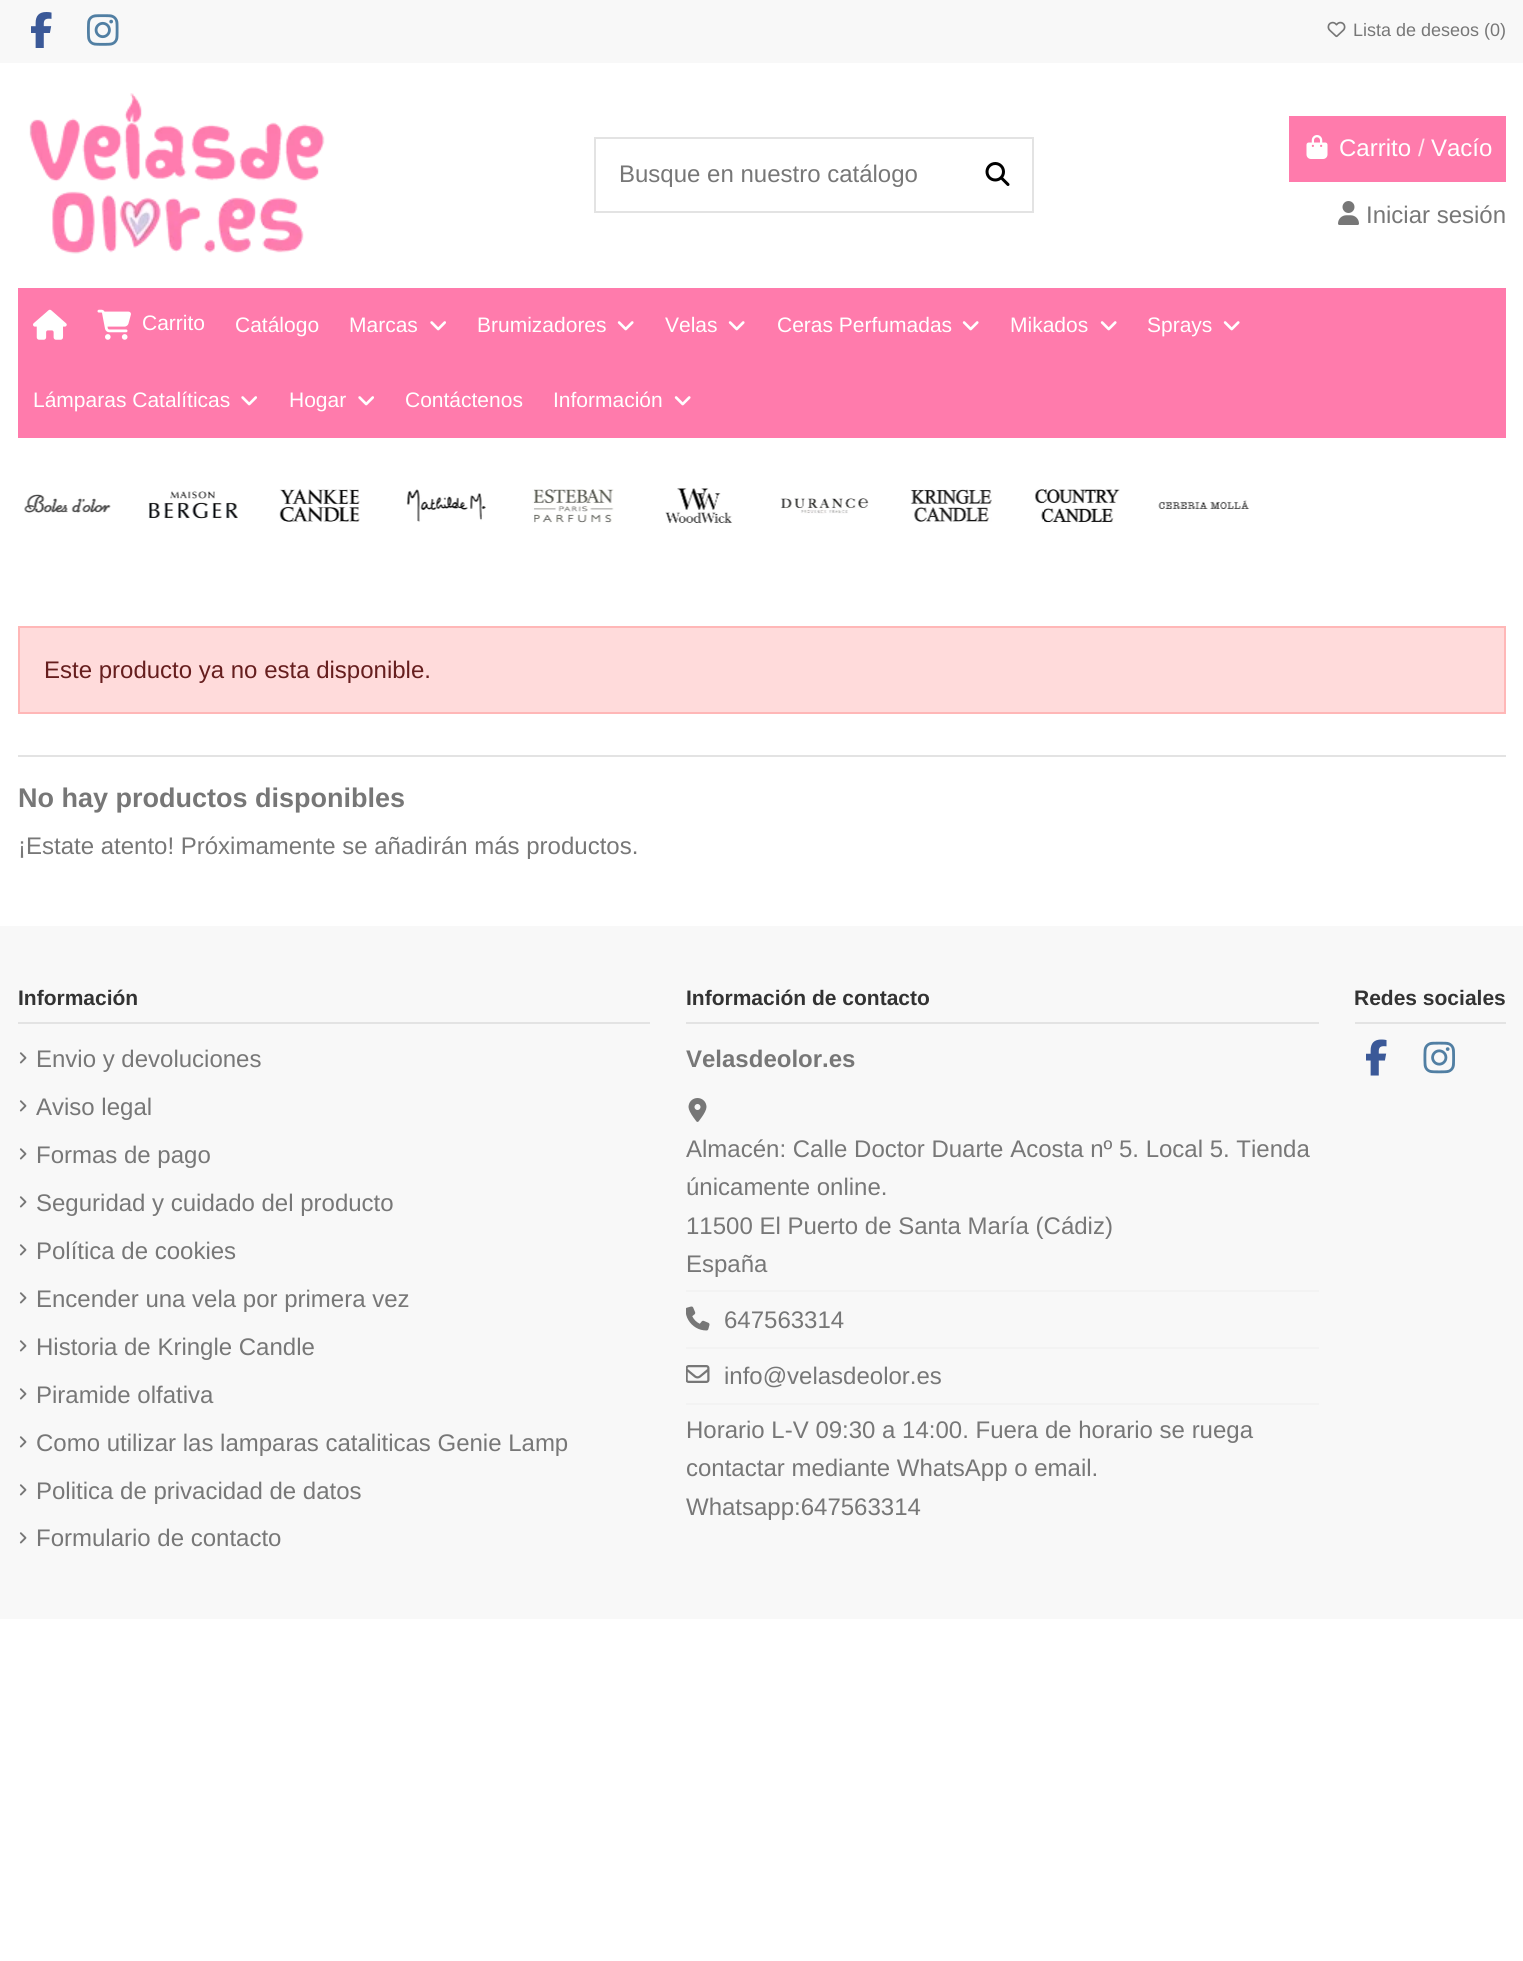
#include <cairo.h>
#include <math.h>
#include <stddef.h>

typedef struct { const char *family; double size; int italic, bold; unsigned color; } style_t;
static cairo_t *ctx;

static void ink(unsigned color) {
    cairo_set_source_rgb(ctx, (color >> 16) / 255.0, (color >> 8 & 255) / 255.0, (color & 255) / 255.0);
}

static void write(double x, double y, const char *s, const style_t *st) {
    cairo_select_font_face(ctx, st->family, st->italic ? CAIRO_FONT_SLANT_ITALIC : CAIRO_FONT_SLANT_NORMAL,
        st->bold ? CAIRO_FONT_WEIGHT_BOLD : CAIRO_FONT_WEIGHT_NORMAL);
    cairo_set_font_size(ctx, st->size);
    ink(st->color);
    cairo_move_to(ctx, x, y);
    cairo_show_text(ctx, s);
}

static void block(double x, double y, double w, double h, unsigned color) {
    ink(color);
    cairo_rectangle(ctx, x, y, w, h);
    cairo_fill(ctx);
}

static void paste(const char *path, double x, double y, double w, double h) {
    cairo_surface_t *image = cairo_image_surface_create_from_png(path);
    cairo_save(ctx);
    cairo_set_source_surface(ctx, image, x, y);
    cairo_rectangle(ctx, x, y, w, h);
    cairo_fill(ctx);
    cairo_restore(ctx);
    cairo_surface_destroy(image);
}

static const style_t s1 = {"Liberation Sans", 18, 0, 0, 0x777777};
static const style_t s2 = {"Liberation Sans", 24, 0, 0, 0x777777};
static const style_t s3 = {"Liberation Sans", 24, 0, 0, 0xffffff};
static const style_t s4 = {"Liberation Sans", 24, 0, 0, 0xffe5ee};
static const style_t s5 = {"Liberation Sans", 21, 0, 0, 0xffffff};
static const style_t s6 = {"Liberation Sans", 24, 0, 0, 0x661e1e};
static const style_t s7 = {"Liberation Sans", 27, 0, 1, 0x777777};
static const style_t s8 = {"Liberation Sans", 21, 0, 1, 0x333333};
static const style_t s9 = {"Liberation Sans", 24, 0, 1, 0x777777};

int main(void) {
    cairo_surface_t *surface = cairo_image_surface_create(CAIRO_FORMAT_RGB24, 1523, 1961);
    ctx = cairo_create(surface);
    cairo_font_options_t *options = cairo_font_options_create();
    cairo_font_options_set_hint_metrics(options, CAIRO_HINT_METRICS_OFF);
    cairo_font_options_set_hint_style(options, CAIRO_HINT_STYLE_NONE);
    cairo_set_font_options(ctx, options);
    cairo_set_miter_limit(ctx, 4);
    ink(0xffffff);
    cairo_paint(ctx);
    block(0, 0, 1523, 63, 0xf8f8f8);
    paste("pic1.png", 31, 12, 21, 36);
    paste("pic2.png", 87, 14, 32, 32);
    paste("pic3.png", 1327, 21, 19, 17);
    write(1353, 36, "Lista de deseos (0)", &s1);
    paste("pic4.png", 29, 93, 296, 161);
    cairo_rectangle(ctx, 595, 138, 438, 74);
    ink(0xe3e3e3);
    cairo_stroke(ctx);
    write(619, 182, "Busque en nuestro catálogo", &s2);
    paste("pic5.png", 985, 162, 25, 24);
    block(1289, 116, 217, 66, 0xff7bac);
    paste("pic6.png", 1306, 135, 22, 24);
    write(1339, 156, "Carrito", &s3);
    write(1418, 156, "/", &s4);
    write(1431, 156, "Vacío", &s3);
    paste("pic7.png", 1338, 201, 21, 24);
    write(1366, 223, "Iniciar sesión", &s2);
    block(18, 288, 1488, 150, 0xff7bac);
    paste("pic8.png", 33, 309, 34, 31);
    paste("pic9.png", 97, 309, 34, 31);
    write(142, 330, "Carrito", &s5);
    write(235, 332, "Catálogo", &s5);
    write(349, 332, "Marcas", &s5);
    paste("pic10.png", 430, 321, 16, 10);
    write(477, 332, "Brumizadores", &s5);
    paste("pic11.png", 617, 321, 17, 10);
    write(665, 332, "Velas", &s5);
    paste("pic11.png", 728, 321, 17, 10);
    write(777, 332, "Ceras Perfumadas", &s5);
    paste("pic11.png", 962, 321, 17, 10);
    write(1010, 332, "Mikados", &s5);
    paste("pic11.png", 1100, 321, 17, 10);
    write(1147, 332, "Sprays", &s5);
    paste("pic11.png", 1223, 321, 17, 10);
    write(33, 407, "Lámparas Catalíticas", &s5);
    paste("pic10.png", 241, 396, 16, 10);
    write(289, 407, "Hogar", &s5);
    paste("pic10.png", 358, 396, 16, 10);
    write(405, 407, "Contáctenos", &s5);
    write(553, 407, "Información", &s5);
    paste("pic11.png", 674, 396, 17, 10);
    paste("pic12.png", 24, 494, 87, 19);
    paste("pic13.png", 148, 491, 90, 28);
    paste("pic14.png", 279, 489, 81, 33);
    paste("pic15.png", 406, 489, 80, 33);
    paste("pic16.png", 532, 489, 82, 34);
    paste("pic17.png", 665, 488, 68, 35);
    paste("pic18.png", 780, 498, 89, 16);
    paste("pic19.png", 910, 489, 82, 33);
    paste("pic20.png", 1034, 489, 86, 34);
    paste("pic21.png", 1158, 500, 92, 9);
    ink(0xffdbdb);
    cairo_rectangle(ctx, 19, 627, 1486, 86);
    cairo_fill_preserve(ctx);
    ink(0xffb7b7);
    cairo_stroke(ctx);
    write(44, 678, "Este producto ya no esta disponible.", &s6);
    block(18, 755, 1488, 2, 0xe3e3e3);
    write(18, 807, "No hay productos disponibles", &s7);
    write(18, 854, "¡Estate atento! Próximamente se añadirán más productos.", &s2);
    block(0, 926, 1523, 693, 0xf8f8f8);
    block(18, 1022, 632, 2, 0xe3e3e3);
    write(18, 1005, "Información", &s8);
    paste("pic22.png", 19, 1052, 8, 12);
    write(36, 1067, "Envio y devoluciones", &s2);
    paste("pic22.png", 19, 1100, 8, 12);
    write(36, 1115, "Aviso legal", &s2);
    paste("pic22.png", 19, 1148, 8, 12);
    write(36, 1163, "Formas de pago", &s2);
    paste("pic22.png", 19, 1196, 8, 12);
    write(36, 1211, "Seguridad y cuidado del producto", &s2);
    paste("pic22.png", 19, 1244, 8, 12);
    write(36, 1259, "Política de cookies", &s2);
    paste("pic22.png", 19, 1292, 8, 12);
    write(36, 1307, "Encender una vela por primera vez", &s2);
    paste("pic22.png", 19, 1340, 8, 12);
    write(36, 1355, "Historia de Kringle Candle", &s2);
    paste("pic22.png", 19, 1388, 8, 12);
    write(36, 1403, "Piramide olfativa", &s2);
    paste("pic22.png", 19, 1436, 8, 12);
    write(36, 1451, "Como utilizar las lamparas cataliticas Genie Lamp", &s2);
    paste("pic22.png", 19, 1484, 8, 12);
    write(36, 1499, "Politica de privacidad de datos", &s2);
    paste("pic22.png", 19, 1532, 8, 12);
    write(36, 1546, "Formulario de contacto", &s2);
    block(686, 1022, 633, 2, 0xe3e3e3);
    write(686, 1005, "Información de contacto", &s8);
    write(686, 1067, "Velasdeolor.es", &s9);
    paste("pic23.png", 688, 1098, 19, 24);
    write(686, 1157, "Almacén: Calle Doctor Duarte Acosta nº 5. Local 5. Tienda", &s2);
    write(686, 1195, "únicamente online.", &s2);
    write(686, 1234, "11500 El Puerto de Santa María (Cádiz)", &s2);
    write(686, 1272, "España", &s2);
    block(686, 1290, 633, 2, 0xf3f3f3);
    paste("pic24.png", 686, 1306, 24, 25);
    write(724, 1328, "647563314", &s2);
    block(686, 1347, 633, 2, 0xf3f3f3);
    paste("pic25.png", 686, 1365, 24, 18);
    write(724, 1384, "info@velasdeolor.es", &s2);
    block(686, 1403, 633, 2, 0xf3f3f3);
    write(686, 1438, "Horario L-V 09:30 a 14:00. Fuera de horario se ruega", &s2);
    write(686, 1476, "contactar mediante WhatsApp o email.", &s2);
    write(686, 1515, "Whatsapp:647563314", &s2);
    block(1355, 1022, 151, 2, 0xe3e3e3);
    write(1354, 1005, "Redes sociales", &s8);
    paste("pic26.png", 1366, 1039, 21, 37);
    paste("pic27.png", 1423, 1041, 32, 33);
    cairo_surface_write_to_png(surface, "screenshot.png");
    cairo_font_options_destroy(options);
    cairo_destroy(ctx);
    cairo_surface_destroy(surface);
    return 0;
}
